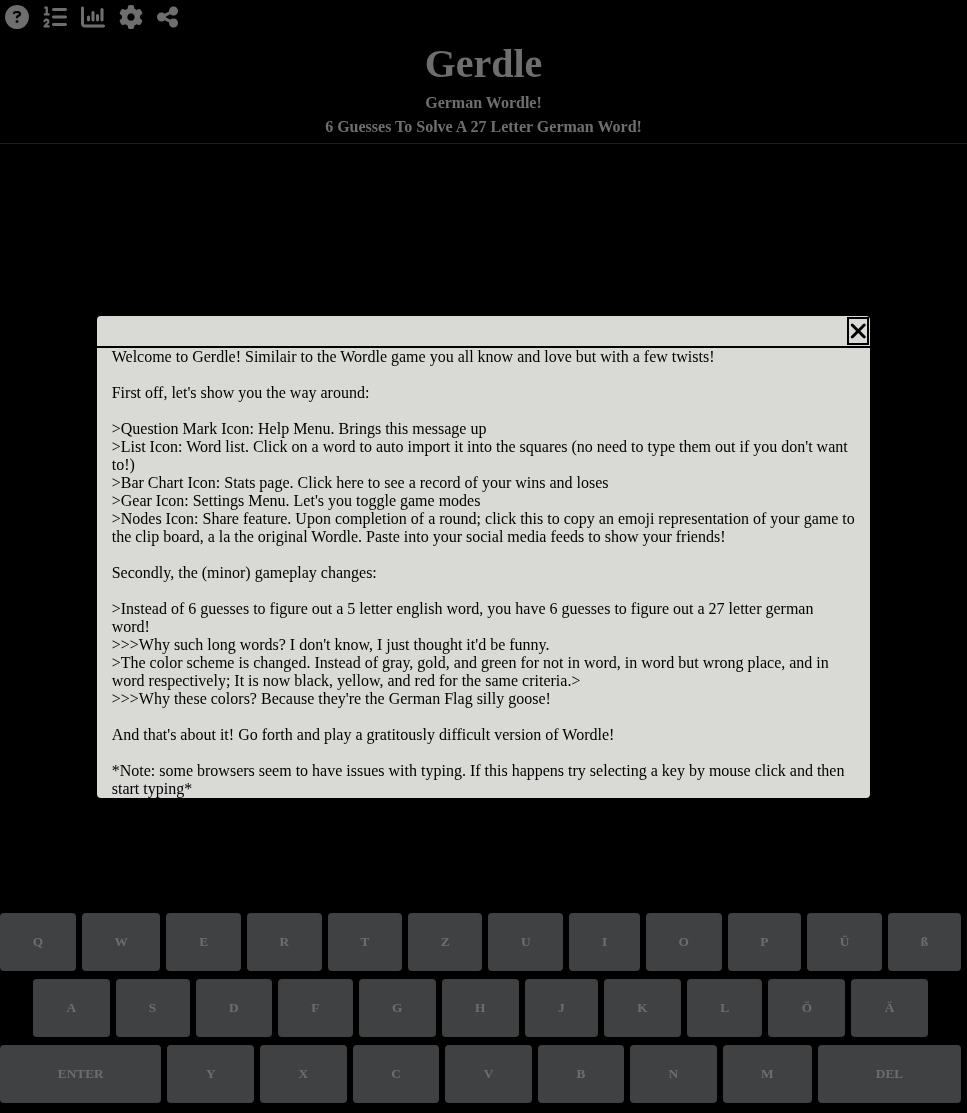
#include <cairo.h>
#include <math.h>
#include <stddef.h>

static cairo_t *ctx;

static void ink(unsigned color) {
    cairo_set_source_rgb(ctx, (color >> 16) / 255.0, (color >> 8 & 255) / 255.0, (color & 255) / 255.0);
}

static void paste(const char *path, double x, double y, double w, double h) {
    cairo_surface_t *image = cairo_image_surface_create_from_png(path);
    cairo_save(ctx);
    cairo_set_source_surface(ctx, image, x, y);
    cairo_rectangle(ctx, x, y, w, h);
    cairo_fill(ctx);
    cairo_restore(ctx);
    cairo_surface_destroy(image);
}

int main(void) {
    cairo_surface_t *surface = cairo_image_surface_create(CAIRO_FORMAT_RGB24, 967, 1113);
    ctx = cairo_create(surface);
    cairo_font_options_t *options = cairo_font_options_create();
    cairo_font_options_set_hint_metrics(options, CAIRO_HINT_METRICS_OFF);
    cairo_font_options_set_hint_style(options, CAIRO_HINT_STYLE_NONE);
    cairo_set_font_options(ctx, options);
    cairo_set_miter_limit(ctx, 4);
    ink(0xffffff);
    cairo_paint(ctx);
    paste("pic1.png", 0, 0, 967, 1113);
    cairo_surface_write_to_png(surface, "screenshot.png");
    cairo_font_options_destroy(options);
    cairo_destroy(ctx);
    cairo_surface_destroy(surface);
    return 0;
}
